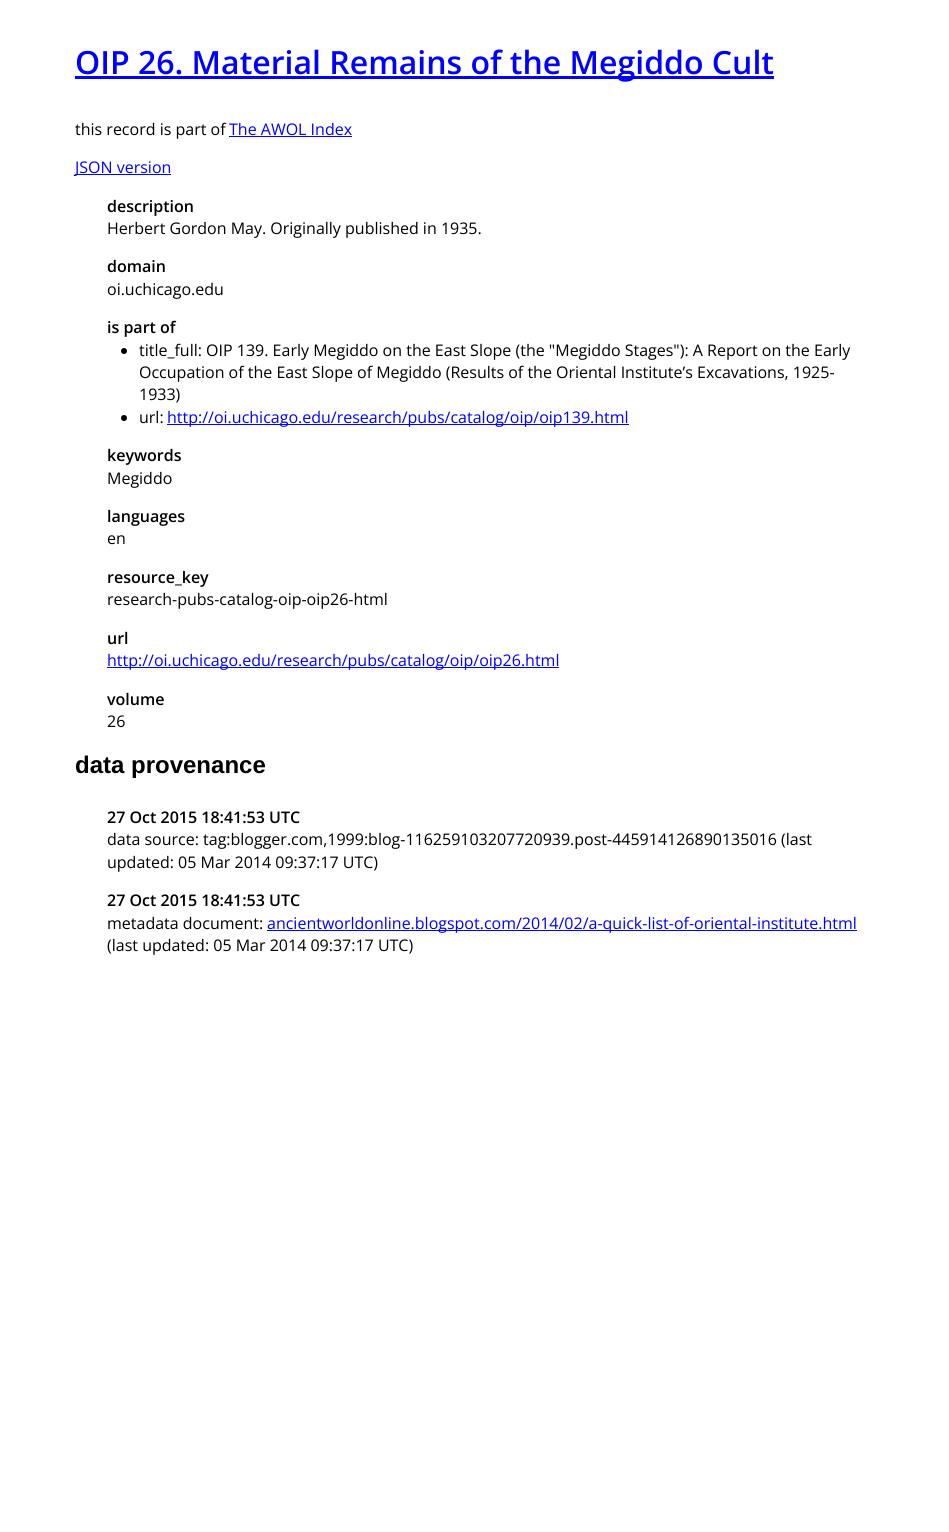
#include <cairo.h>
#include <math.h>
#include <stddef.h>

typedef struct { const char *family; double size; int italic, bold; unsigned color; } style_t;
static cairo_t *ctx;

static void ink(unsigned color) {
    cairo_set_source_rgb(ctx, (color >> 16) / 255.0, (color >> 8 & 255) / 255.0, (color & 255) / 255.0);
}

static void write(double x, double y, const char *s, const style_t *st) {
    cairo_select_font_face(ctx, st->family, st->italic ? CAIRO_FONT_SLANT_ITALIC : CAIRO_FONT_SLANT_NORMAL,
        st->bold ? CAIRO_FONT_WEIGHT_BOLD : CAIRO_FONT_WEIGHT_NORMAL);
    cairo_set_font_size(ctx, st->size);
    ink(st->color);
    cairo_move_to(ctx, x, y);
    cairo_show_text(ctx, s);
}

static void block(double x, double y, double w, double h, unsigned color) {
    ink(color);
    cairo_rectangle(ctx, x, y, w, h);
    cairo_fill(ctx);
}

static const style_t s1 = {"Open Sans SemiBold", 32, 0, 0, 0x0000ff};
static const style_t s2 = {"Open Sans", 16, 0, 0, 0x000000};
static const style_t s3 = {"Open Sans", 16, 0, 0, 0x0000ff};
static const style_t s4 = {"Open Sans SemiBold", 16, 0, 0, 0x000000};
static const style_t s5 = {"Liberation Sans", 24, 0, 1, 0x000000};

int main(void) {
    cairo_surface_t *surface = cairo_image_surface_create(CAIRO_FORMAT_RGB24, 949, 1532);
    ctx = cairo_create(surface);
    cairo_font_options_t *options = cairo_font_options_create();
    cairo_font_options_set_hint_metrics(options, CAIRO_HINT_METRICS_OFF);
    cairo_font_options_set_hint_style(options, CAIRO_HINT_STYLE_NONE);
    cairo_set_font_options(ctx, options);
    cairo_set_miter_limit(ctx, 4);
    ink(0xffffff);
    cairo_paint(ctx);
    block(75, 76, 699, 3, 0x0000ff);
    write(75, 74, "OIP 26. Material Remains of the Megiddo Cult", &s1);
    write(75, 135, "this record is part of", &s2);
    write(229, 135, "The AWOL Index", &s3);
    block(229, 136, 123, 1, 0x0000ff);
    block(75, 174, 96, 1, 0x0000ff);
    write(75, 173, "JSON version", &s3);
    write(107, 212, "description", &s4);
    write(107, 234, "Herbert Gordon May. Originally published in 1935.", &s2);
    write(107, 272, "domain", &s4);
    write(107, 295, "oi.uchicago.edu", &s2);
    write(107, 333, "is part of", &s4);
    cairo_new_path(ctx);
    cairo_arc(ctx, 124, 351, 3, 0, 2 * M_PI);
    cairo_fill(ctx);
    write(139, 356, "title_full: OIP 139. Early Megiddo on the East Slope (the \"Megiddo Stages\"): A Report on the Early", &s2);
    write(139, 378, "Occupation of the East Slope of Megiddo (Results of the Oriental Institute’s Excavations, 1925-", &s2);
    write(139, 400, "1933)", &s2);
    cairo_new_path(ctx);
    cairo_arc(ctx, 124, 418, 3, 0, 2 * M_PI);
    cairo_fill(ctx);
    write(139, 423, "url:", &s2);
    block(167, 424, 462, 1, 0x0000ff);
    write(167, 423, "http://oi.uchicago.edu/research/pubs/catalog/oip/oip139.html", &s3);
    write(107, 461, "keywords", &s4);
    write(107, 484, "Megiddo", &s2);
    write(107, 522, "languages", &s4);
    write(107, 544, "en", &s2);
    write(107, 583, "resource_key", &s4);
    write(107, 605, "research-pubs-catalog-oip-oip26-html", &s2);
    write(107, 644, "url", &s4);
    block(107, 667, 452, 1, 0x0000ff);
    write(107, 666, "http://oi.uchicago.edu/research/pubs/catalog/oip/oip26.html", &s3);
    write(107, 705, "volume", &s4);
    write(107, 727, "26", &s2);
    write(75, 773, "data provenance", &s5);
    write(107, 823, "27 Oct 2015 18:41:53 UTC", &s4);
    write(107, 845, "data source: tag:blogger.com,1999:blog-116259103207720939.post-445914126890135016 (last", &s2);
    write(107, 868, "updated: 05 Mar 2014 09:37:17 UTC)", &s2);
    write(107, 906, "27 Oct 2015 18:41:53 UTC", &s4);
    write(107, 929, "metadata document:", &s2);
    block(267, 930, 590, 1, 0x0000ff);
    write(267, 929, "ancientworldonline.blogspot.com/2014/02/a-quick-list-of-oriental-institute.html", &s3);
    write(107, 951, "(last updated: 05 Mar 2014 09:37:17 UTC)", &s2);
    cairo_surface_write_to_png(surface, "screenshot.png");
    cairo_font_options_destroy(options);
    cairo_destroy(ctx);
    cairo_surface_destroy(surface);
    return 0;
}
